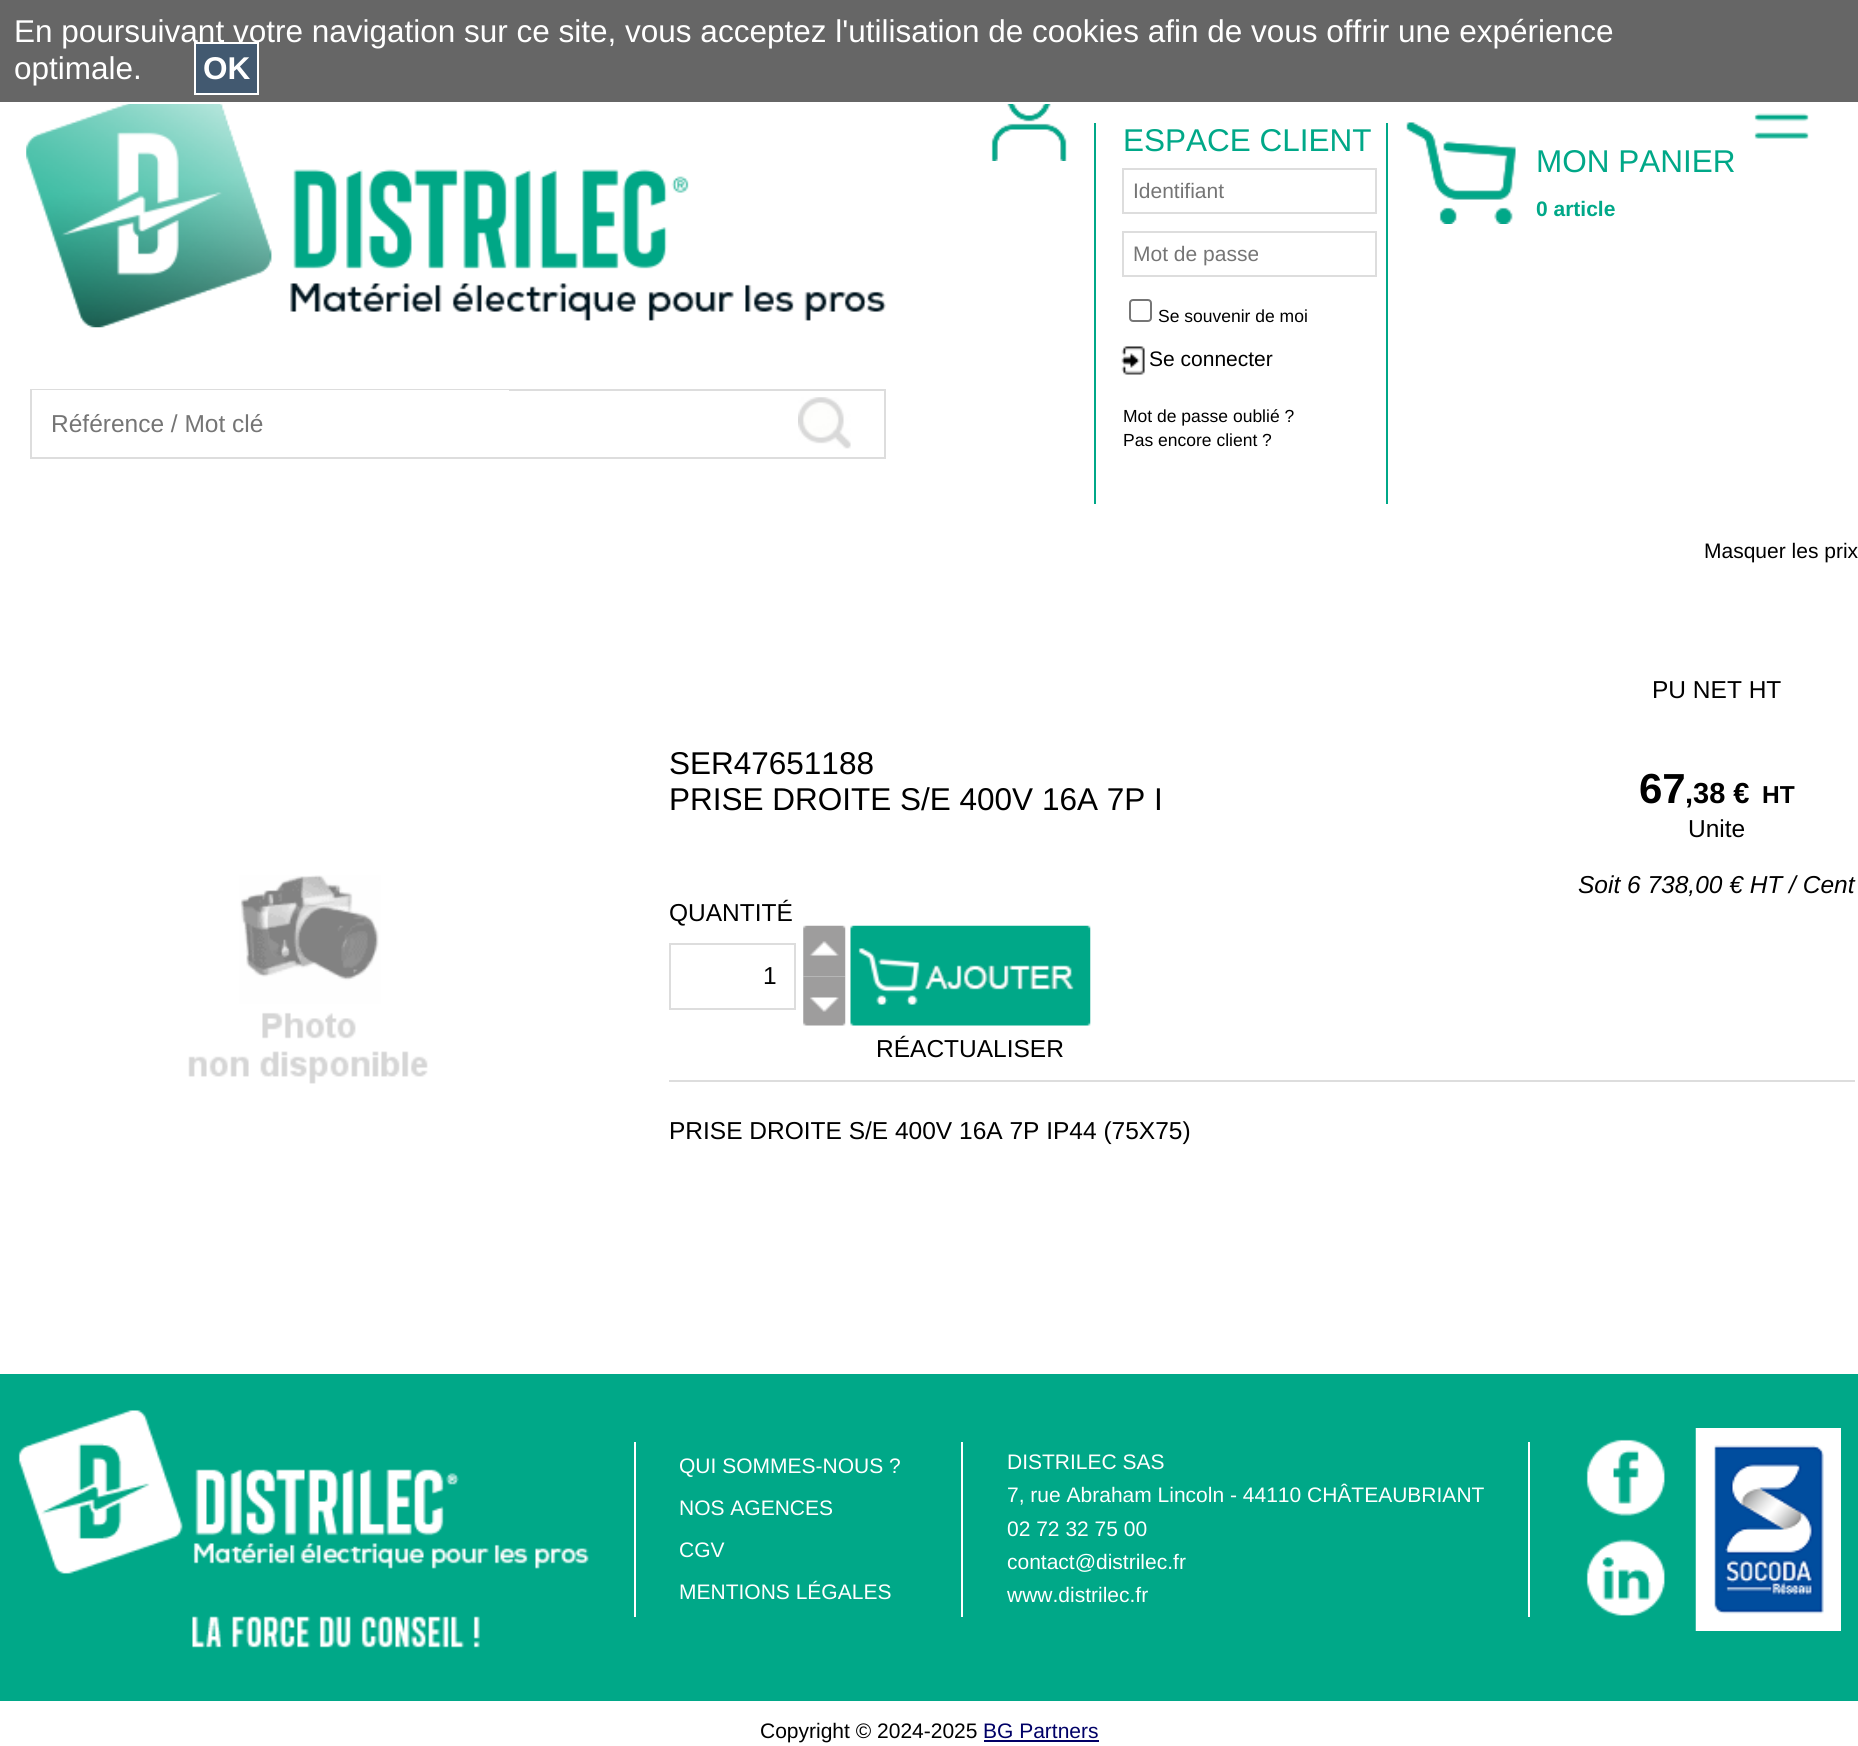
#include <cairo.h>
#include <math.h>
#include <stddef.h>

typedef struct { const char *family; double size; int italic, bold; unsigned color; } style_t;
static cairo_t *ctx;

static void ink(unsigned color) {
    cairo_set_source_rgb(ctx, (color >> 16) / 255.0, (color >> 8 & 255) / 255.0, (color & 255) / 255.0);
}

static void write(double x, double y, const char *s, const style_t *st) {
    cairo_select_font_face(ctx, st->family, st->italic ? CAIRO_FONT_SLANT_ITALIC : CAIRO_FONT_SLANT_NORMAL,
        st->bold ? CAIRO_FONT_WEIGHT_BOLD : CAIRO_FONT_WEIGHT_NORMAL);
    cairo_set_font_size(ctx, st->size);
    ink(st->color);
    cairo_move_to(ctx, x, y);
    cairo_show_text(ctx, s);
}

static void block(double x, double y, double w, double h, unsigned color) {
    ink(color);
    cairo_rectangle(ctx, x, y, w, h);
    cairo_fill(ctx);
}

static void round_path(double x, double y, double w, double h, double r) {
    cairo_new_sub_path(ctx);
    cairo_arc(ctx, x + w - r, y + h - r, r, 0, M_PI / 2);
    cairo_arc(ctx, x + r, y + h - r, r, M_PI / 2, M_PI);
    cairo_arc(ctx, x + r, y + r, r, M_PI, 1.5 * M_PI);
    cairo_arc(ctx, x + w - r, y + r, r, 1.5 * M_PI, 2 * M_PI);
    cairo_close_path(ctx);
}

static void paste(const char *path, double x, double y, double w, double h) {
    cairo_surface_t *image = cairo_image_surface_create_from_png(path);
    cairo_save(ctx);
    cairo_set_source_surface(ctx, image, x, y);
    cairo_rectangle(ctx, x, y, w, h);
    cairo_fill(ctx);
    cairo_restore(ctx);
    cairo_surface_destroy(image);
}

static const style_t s1 = {"Liberation Sans", 31.5, 0, 0, 0xffffff};
static const style_t s2 = {"Liberation Sans", 31.5, 0, 1, 0xffffff};
static const style_t s3 = {"Liberation Sans", 24.5, 0, 0, 0x757575};
static const style_t s4 = {"Liberation Sans", 31.5, 0, 0, 0x00a888};
static const style_t s5 = {"Liberation Sans", 21, 0, 0, 0x757575};
static const style_t s6 = {"Liberation Sans", 17.5, 0, 0, 0x000000};
static const style_t s7 = {"Liberation Sans", 21, 0, 0, 0x000000};
static const style_t s8 = {"Liberation Sans", 21, 0, 1, 0x00a888};
static const style_t s9 = {"Liberation Sans", 31.5, 0, 0, 0x000000};
static const style_t s10 = {"Liberation Sans", 24.5, 0, 0, 0x000000};
static const style_t s11 = {"Liberation Sans", 42, 0, 1, 0x000000};
static const style_t s12 = {"Liberation Sans", 29, 0, 1, 0x000000};
static const style_t s13 = {"Liberation Sans", 24.5, 0, 1, 0x000000};
static const style_t s14 = {"Liberation Sans", 24.5, 1, 0, 0x000000};
static const style_t s15 = {"Liberation Sans", 21, 0, 0, 0xffffff};
static const style_t s16 = {"Liberation Sans", 21, 0, 0, 0x000066};

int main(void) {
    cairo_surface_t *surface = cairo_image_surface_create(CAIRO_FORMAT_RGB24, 1858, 1746);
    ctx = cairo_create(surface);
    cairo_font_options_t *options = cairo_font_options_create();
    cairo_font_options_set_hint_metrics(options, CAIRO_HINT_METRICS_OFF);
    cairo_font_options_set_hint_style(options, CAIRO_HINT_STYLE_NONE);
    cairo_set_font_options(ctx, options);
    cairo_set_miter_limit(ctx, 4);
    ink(0xffffff);
    cairo_paint(ctx);
    block(0, 0, 1858, 102, 0x666666);
    write(14, 42, "En poursuivant votre navigation sur ce site, vous acceptez l'utilisation de cookies afin de vous offrir une expérience", &s1);
    write(14, 79, "optimale.", &s1);
    ink(0x425970);
    cairo_rectangle(ctx, 195, 43, 63, 51);
    cairo_fill_preserve(ctx);
    ink(0xffffff);
    cairo_stroke(ctx);
    write(203, 79, "OK", &s2);
    paste("pic1.png", 26, 104, 860, 224);
    block(30, 389, 856, 2, 0xdddddd);
    block(884, 389, 2, 70, 0xdddddd);
    block(30, 457, 856, 2, 0xdddddd);
    block(30, 389, 2, 70, 0xdddddd);
    block(32, 390, 477, 1, 0xffffff);
    write(51, 432, "Référence / Mot clé", &s3);
    paste("pic2.png", 798, 397, 53, 52);
    paste("pic3.png", 991, 104, 76, 57);
    block(1094, 123, 2, 381, 0x00a888);
    write(1123, 151, "ESPACE CLIENT", &s4);
    cairo_rectangle(ctx, 1123, 169, 253, 44);
    ink(0xdddddd);
    cairo_stroke(ctx);
    write(1133, 198, "Identifiant", &s5);
    cairo_rectangle(ctx, 1123, 232, 253, 44);
    ink(0xdddddd);
    cairo_stroke(ctx);
    write(1133, 261, "Mot de passe", &s5);
    round_path(1130, 300, 21, 21, 3);
    ink(0x767676);
    cairo_stroke(ctx);
    write(1158, 322, "Se souvenir de moi", &s6);
    paste("pic4.png", 1121, 346, 24, 29);
    write(1149, 366, "Se connecter", &s7);
    write(1123, 422, "Mot de passe oublié ?", &s6);
    write(1123, 446, "Pas encore client ?", &s6);
    block(1386, 123, 2, 381, 0x00a888);
    paste("pic5.png", 1406, 122, 110, 102);
    write(1536, 172, "MON PANIER", &s4);
    write(1536, 216, "0 article", &s8);
    paste("pic6.png", 1754, 113, 55, 26);
    write(1704, 558, "Masquer les prix", &s7);
    paste("pic7.png", 188, 875, 240, 209);
    write(669, 774, "SER47651188", &s9);
    write(669, 810, "PRISE DROITE S/E 400V 16A 7P I", &s9);
    write(1652, 698, "PU NET HT", &s10);
    write(1639, 803, "67", &s11);
    write(1685, 803, ",38 €", &s12);
    write(1762, 803, "HT", &s13);
    write(1688, 837, "Unite", &s10);
    write(1578, 893, "Soit 6 738,00 € HT / Cent", &s14);
    write(669, 921, "QUANTITÉ", &s10);
    cairo_rectangle(ctx, 670, 944, 125, 65);
    ink(0xdddddd);
    cairo_stroke(ctx);
    write(763, 984, "1", &s10);
    paste("pic8.png", 803, 925, 43, 52);
    paste("pic9.png", 850, 925, 241, 101);
    paste("pic10.png", 803, 976, 43, 50);
    write(876, 1057, "RÉACTUALISER", &s10);
    block(669, 1080, 1186, 2, 0xdddddd);
    write(669, 1139, "PRISE DROITE S/E 400V 16A 7P IP44 (75X75)", &s10);
    block(0, 1374, 1858, 327, 0x00a888);
    paste("pic11.png", 18, 1410, 571, 238);
    block(634, 1442, 2, 175, 0xffffff);
    write(679, 1473, "QUI SOMMES-NOUS ?", &s15);
    write(679, 1515, "NOS AGENCES", &s15);
    write(679, 1557, "CGV", &s15);
    write(679, 1599, "MENTIONS LÉGALES", &s15);
    block(961, 1442, 2, 175, 0xffffff);
    write(1007, 1469, "DISTRILEC SAS", &s15);
    write(1007, 1502, "7, rue Abraham Lincoln - 44110 CHÂTEAUBRIANT", &s15);
    write(1007, 1536, "02 72 32 75 00", &s15);
    write(1007, 1569, "contact@distrilec.fr", &s15);
    write(1007, 1602, "www.distrilec.fr", &s15);
    block(1528, 1442, 2, 175, 0xffffff);
    paste("pic12.png", 1586, 1439, 79, 77);
    paste("pic13.png", 1695, 1428, 146, 203);
    paste("pic14.png", 1586, 1539, 79, 77);
    write(760, 1738, "Copyright © 2024-2025", &s7);
    write(983, 1738, "BG Partners", &s16);
    block(984, 1740, 115, 2, 0x000066);
    cairo_surface_write_to_png(surface, "screenshot.png");
    cairo_font_options_destroy(options);
    cairo_destroy(ctx);
    cairo_surface_destroy(surface);
    return 0;
}
